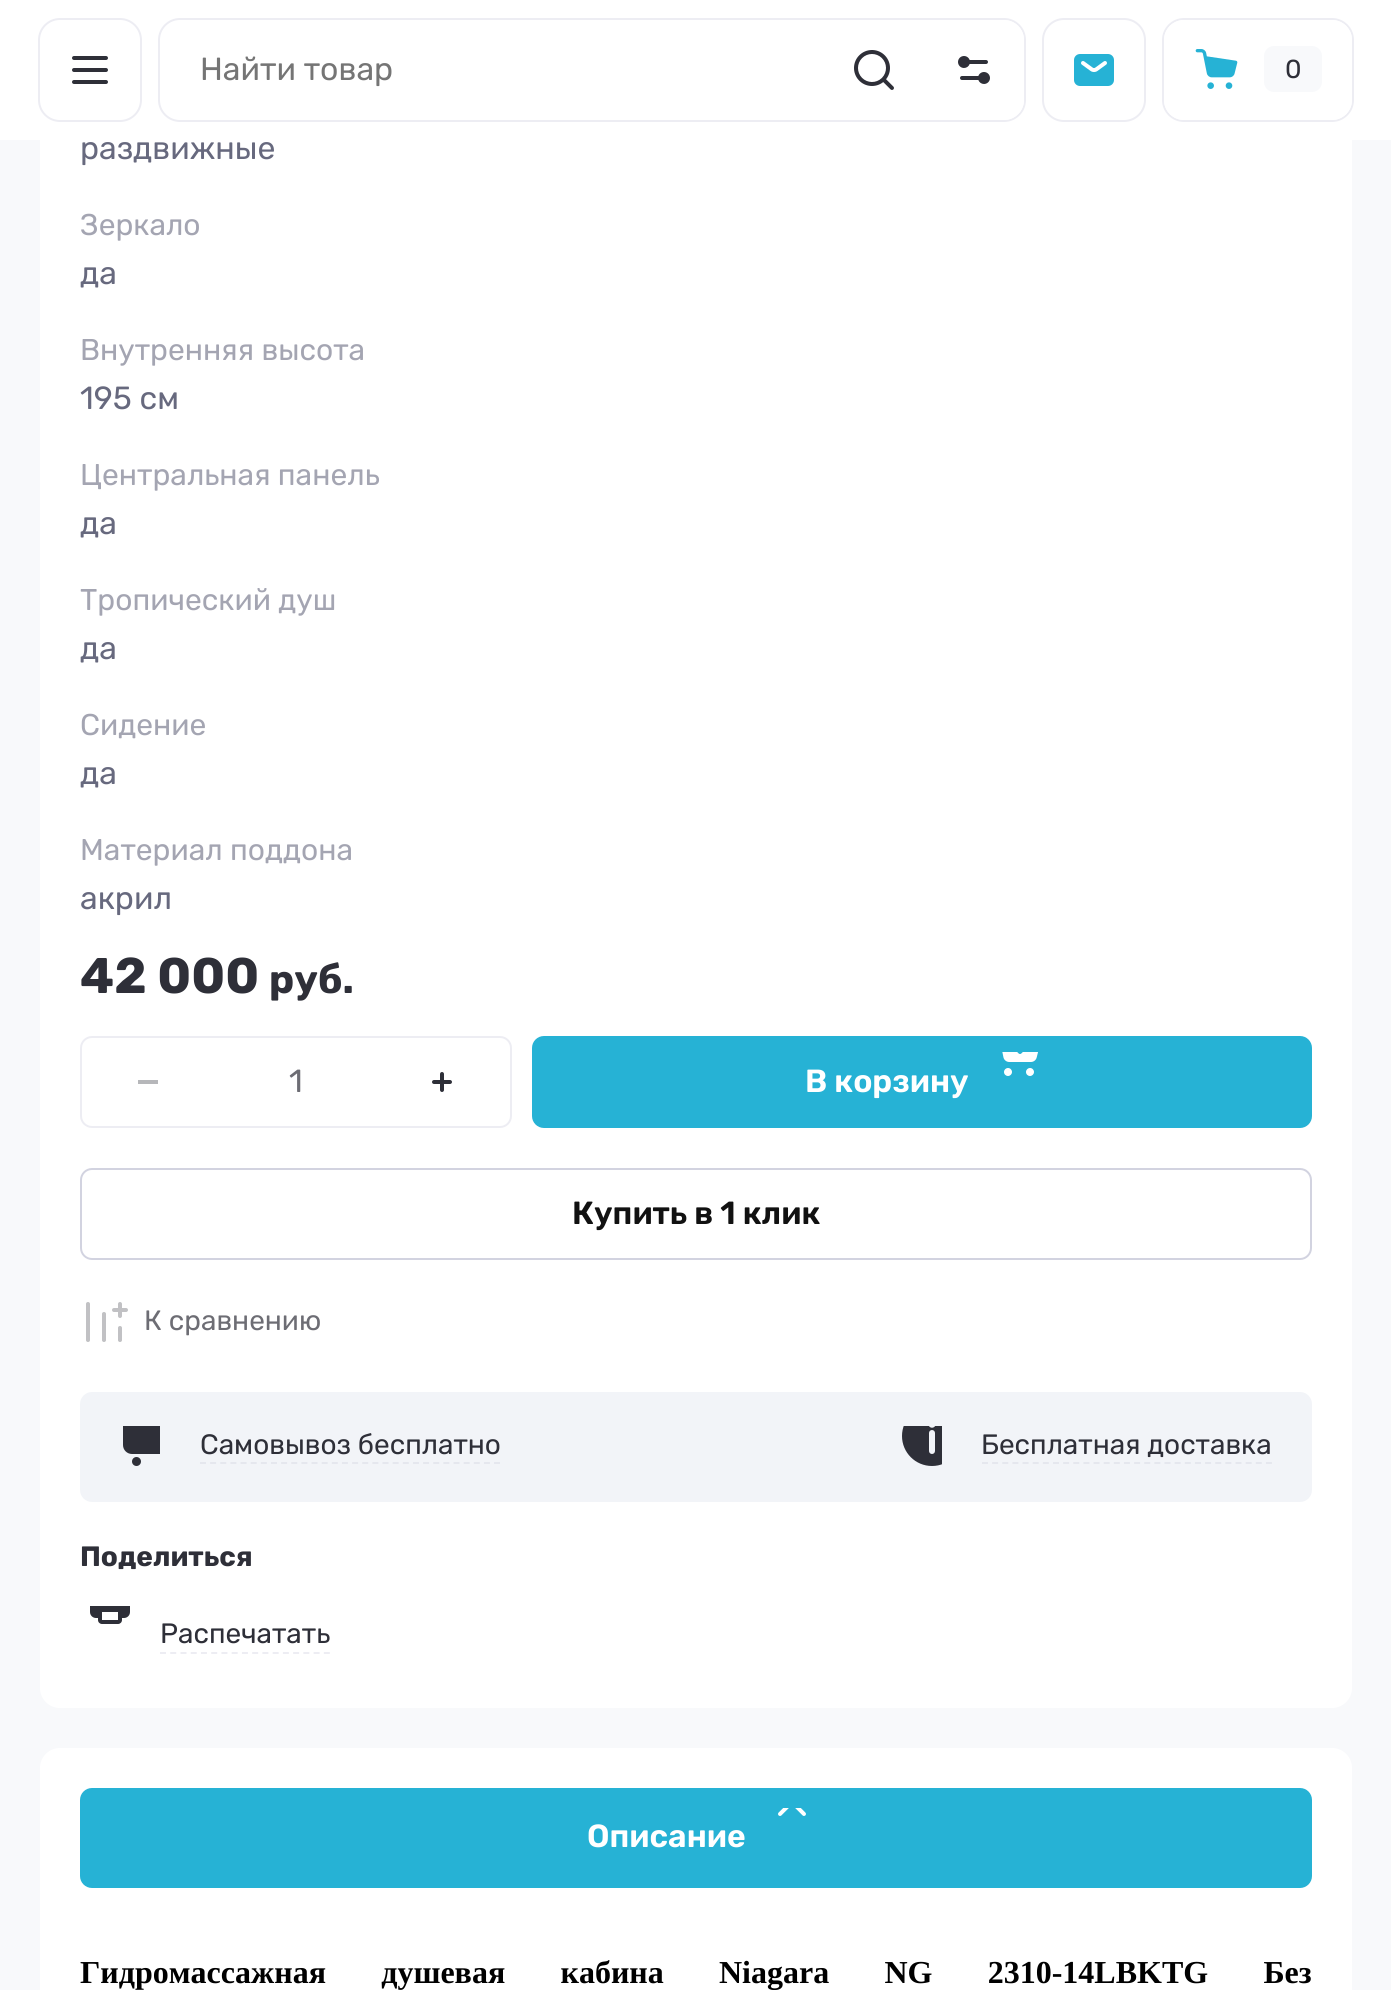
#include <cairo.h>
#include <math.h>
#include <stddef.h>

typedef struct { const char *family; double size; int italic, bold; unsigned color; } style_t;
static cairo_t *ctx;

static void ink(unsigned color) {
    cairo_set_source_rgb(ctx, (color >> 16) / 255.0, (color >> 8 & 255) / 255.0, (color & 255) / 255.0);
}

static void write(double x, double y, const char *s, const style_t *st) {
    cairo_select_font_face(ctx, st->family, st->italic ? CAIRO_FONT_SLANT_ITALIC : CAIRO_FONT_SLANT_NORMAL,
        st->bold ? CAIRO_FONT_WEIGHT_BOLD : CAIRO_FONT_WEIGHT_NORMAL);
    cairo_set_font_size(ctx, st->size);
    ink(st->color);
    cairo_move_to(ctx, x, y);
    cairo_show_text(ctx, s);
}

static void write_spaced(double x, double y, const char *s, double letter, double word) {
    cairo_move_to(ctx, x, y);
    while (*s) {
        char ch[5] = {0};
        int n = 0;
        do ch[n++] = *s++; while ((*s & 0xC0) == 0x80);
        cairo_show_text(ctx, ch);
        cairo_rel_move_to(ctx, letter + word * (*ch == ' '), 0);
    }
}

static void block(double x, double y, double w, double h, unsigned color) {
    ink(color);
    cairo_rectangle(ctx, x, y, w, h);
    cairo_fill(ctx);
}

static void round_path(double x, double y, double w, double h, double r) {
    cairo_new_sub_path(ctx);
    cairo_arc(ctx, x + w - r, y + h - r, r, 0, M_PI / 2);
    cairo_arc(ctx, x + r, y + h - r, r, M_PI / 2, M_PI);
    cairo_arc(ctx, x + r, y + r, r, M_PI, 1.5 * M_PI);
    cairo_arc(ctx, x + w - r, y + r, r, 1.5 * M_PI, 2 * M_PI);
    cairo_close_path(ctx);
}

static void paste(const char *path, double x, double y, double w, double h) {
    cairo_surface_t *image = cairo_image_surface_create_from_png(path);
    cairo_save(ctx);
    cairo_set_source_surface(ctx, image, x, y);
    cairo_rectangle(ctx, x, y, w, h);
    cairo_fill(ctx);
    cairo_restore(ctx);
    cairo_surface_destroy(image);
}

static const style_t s1 = {"Rubik", 32, 0, 0, 0x757575};
static const style_t s2 = {"Rubik", 26, 0, 0, 0x2e2f38};
static const style_t s3 = {"Rubik", 32, 0, 0, 0x67697e};
static const style_t s4 = {"Rubik", 30, 0, 0, 0xa4a5b2};
static const style_t s5 = {"Rubik", 50, 0, 1, 0x2e2f38};
static const style_t s6 = {"Rubik", 40, 0, 1, 0x2e2f38};
static const style_t s7 = {"Rubik", 32, 0, 0, 0x6d6d74};
static const style_t s8 = {"Rubik SemiBold", 32, 0, 0, 0xffffff};
static const style_t s9 = {"Rubik SemiBold", 32, 0, 0, 0x111111};
static const style_t s10 = {"Rubik", 28, 0, 0, 0x6d6d74};
static const style_t s11 = {"Rubik", 28, 0, 0, 0x2e2f38};
static const style_t s12 = {"Rubik", 28, 0, 1, 0x2e2f38};

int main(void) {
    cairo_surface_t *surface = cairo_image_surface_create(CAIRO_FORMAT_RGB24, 1391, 1990);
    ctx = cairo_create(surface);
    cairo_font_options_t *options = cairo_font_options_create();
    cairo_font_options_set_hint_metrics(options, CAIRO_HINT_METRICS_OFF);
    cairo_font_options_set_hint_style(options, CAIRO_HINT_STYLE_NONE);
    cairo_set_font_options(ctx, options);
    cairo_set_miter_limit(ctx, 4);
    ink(0xf8f9fb);
    cairo_paint(ctx);
    ink(0xffffff);
    round_path(40, -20, 1312, 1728, 20);
    cairo_fill(ctx);
    block(0, 0, 1391, 140, 0xffffff);
    round_path(39, 19, 102, 102, 21);
    ink(0xededf3);
    cairo_stroke(ctx);
    paste("pic1.png", 72, 56, 36, 28);
    round_path(159, 19, 866, 102, 21);
    cairo_stroke(ctx);
    write(200, 80, "Найти товар", &s1);
    paste("pic2.png", 854, 50, 40, 40);
    ink(0xffffff);
    cairo_new_path(ctx);
    cairo_move_to(ctx, 924, 20);
    cairo_line_to(ctx, 1004, 20);
    cairo_curve_to(ctx, 1015, 20, 1024, 29, 1024, 40);
    cairo_line_to(ctx, 1024, 100);
    cairo_curve_to(ctx, 1024, 111, 1015, 120, 1004, 120);
    cairo_line_to(ctx, 924, 120);
    cairo_close_path(ctx);
    cairo_fill(ctx);
    paste("pic3.png", 958, 56, 32, 28);
    round_path(1043, 19, 102, 102, 21);
    ink(0xededf3);
    cairo_stroke(ctx);
    paste("pic4.png", 1074, 54, 40, 32);
    round_path(1163, 19, 190, 102, 21);
    cairo_stroke(ctx);
    ink(0xffffff);
    round_path(1164, 20, 188, 100, 20);
    cairo_fill(ctx);
    paste("pic5.png", 1195, 49, 43, 40);
    ink(0xf8f9fb);
    round_path(1264, 46, 58, 46, 10);
    cairo_fill(ctx);
    write(1285, 78, "0", &s2);
    write(80, 159, "раздвижные", &s3);
    write(80, 235, "Зеркало", &s4);
    write(80, 284, "да", &s3);
    write(80, 360, "Внутренняя высота", &s4);
    write(80, 409, "195 см", &s3);
    write(80, 485, "Центральная панель", &s4);
    write(80, 534, "да", &s3);
    write(80, 610, "Тропический душ", &s4);
    write(80, 659, "да", &s3);
    write(80, 735, "Сидение", &s4);
    write(80, 784, "да", &s3);
    write(80, 860, "Материал поддона", &s4);
    write(80, 909, "акрил", &s3);
    write(80, 993, "42 000", &s5);
    write(269, 993, "руб.", &s6);
    round_path(81, 1037, 430, 90, 11);
    ink(0xededf3);
    cairo_stroke(ctx);
    block(138, 1080, 20, 4, 0xb6b7ba);
    write(289, 1092, "1", &s7);
    paste("pic6.png", 432, 1072, 20, 20);
    ink(0x26b2d5);
    round_path(532, 1036, 780, 92, 12);
    cairo_fill(ctx);
    paste("pic7.png", 1002, 1052, 36, 24);
    write(805, 1092, "В корзину", &s8);
    round_path(81, 1169, 1230, 90, 11);
    ink(0xd2d3e0);
    cairo_stroke(ctx);
    write(572, 1224, "Купить в 1 клик", &s9);
    paste("pic8.png", 86, 1302, 42, 40);
    write(144, 1330, "К сравнению", &s10);
    ink(0xf2f4f8);
    round_path(80, 1392, 1232, 110, 12);
    cairo_fill(ctx);
    paste("pic9.png", 123, 1426, 37, 40);
    write(200, 1454, "Самовывоз бесплатно", &s11);
    cairo_new_path(ctx);
    cairo_move_to(ctx, 200, 1463);
    cairo_line_to(ctx, 500, 1463);
    ink(0xe5e7ee);
    cairo_set_dash(ctx, (double[]){6, 4.14}, 2, 0);
    cairo_stroke(ctx);
    paste("pic10.png", 902, 1426, 40, 40);
    write(981, 1454, "Бесплатная доставка", &s11);
    cairo_new_path(ctx);
    cairo_move_to(ctx, 982, 1463);
    cairo_line_to(ctx, 1272, 1463);
    ink(0xe5e7ee);
    cairo_stroke(ctx);
    write(80, 1566, "Поделиться", &s12);
    paste("pic11.png", 90, 1606, 40, 18);
    write(160, 1643, "Распечатать", &s11);
    cairo_new_path(ctx);
    cairo_move_to(ctx, 160, 1653);
    cairo_line_to(ctx, 330, 1653);
    ink(0xededf3);
    cairo_set_dash(ctx, (double[]){6, 4.24}, 2, 0);
    cairo_stroke(ctx);
    ink(0xffffff);
    round_path(40, 1748, 1312, 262, 20);
    cairo_fill(ctx);
    ink(0x26b2d5);
    round_path(80, 1788, 1232, 100, 12);
    cairo_fill(ctx);
    paste("pic12.png", 778, 1808, 28, 8);
    write(587, 1847, "Описание", &s8);
    cairo_select_font_face(ctx, "Liberation Serif", CAIRO_FONT_SLANT_NORMAL, CAIRO_FONT_WEIGHT_BOLD);
    ink(0x000000);
    write_spaced(80, 1983, "Гидромассажная душевая кабина Niagara NG 2310-14LBKTG Без", 0, 47.25);
    cairo_surface_write_to_png(surface, "screenshot.png");
    cairo_font_options_destroy(options);
    cairo_destroy(ctx);
    cairo_surface_destroy(surface);
    return 0;
}
